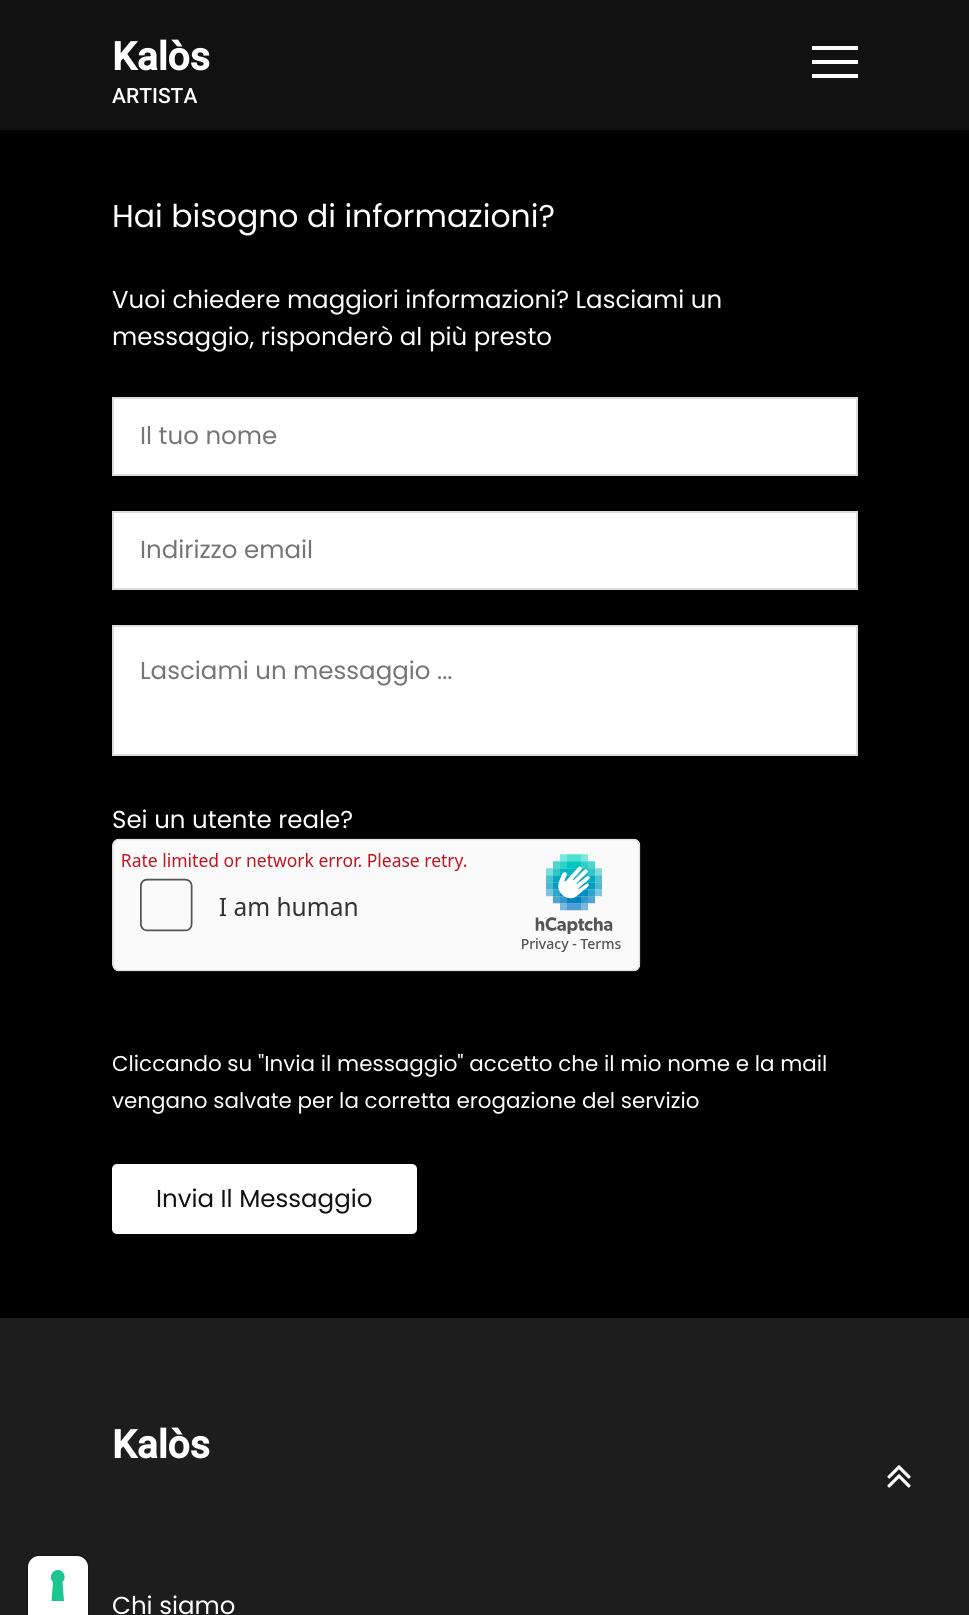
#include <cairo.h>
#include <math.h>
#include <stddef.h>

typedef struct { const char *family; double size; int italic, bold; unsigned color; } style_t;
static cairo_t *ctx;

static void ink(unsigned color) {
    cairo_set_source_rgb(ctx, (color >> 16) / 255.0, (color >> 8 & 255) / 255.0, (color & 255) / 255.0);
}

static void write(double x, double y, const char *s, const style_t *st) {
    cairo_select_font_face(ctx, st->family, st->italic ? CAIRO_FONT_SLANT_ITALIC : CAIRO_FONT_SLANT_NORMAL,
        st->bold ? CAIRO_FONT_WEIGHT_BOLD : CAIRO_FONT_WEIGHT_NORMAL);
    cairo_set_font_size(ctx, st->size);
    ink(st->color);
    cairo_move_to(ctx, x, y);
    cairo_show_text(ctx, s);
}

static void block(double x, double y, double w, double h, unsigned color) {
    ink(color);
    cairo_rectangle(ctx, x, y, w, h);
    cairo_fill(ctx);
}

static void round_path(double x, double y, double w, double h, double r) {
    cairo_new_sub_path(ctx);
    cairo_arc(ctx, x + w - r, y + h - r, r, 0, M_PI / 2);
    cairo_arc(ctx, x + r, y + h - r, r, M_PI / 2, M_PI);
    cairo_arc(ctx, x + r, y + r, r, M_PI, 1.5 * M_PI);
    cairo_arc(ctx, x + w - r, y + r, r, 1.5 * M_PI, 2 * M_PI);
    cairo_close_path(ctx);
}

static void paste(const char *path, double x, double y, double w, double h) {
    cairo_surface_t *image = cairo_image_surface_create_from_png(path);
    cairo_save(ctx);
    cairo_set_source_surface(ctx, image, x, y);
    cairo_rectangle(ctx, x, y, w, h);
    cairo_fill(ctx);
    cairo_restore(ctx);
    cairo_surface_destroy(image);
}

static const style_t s1 = {"Roboto", 39, 0, 1, 0xffffff};
static const style_t s2 = {"Roboto Medium", 21, 0, 0, 0xffffff};
static const style_t s3 = {"Poppins", 31.5, 0, 0, 0xffffff};
static const style_t s4 = {"Poppins", 24.5, 0, 0, 0xffffff};
static const style_t s5 = {"Poppins", 24.5, 0, 0, 0x757575};
static const style_t s6 = {"Poppins", 21.45, 0, 0, 0xffffff};
static const style_t s7 = {"Poppins", 24.5, 0, 0, 0x111111};

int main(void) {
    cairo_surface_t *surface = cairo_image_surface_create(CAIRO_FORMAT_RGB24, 969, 1615);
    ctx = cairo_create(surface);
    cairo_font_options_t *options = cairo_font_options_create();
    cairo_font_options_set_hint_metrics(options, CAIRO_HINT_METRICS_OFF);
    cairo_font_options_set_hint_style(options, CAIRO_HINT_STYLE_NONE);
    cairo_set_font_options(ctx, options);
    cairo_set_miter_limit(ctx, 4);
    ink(0x000000);
    cairo_paint(ctx);
    block(0, 0, 969, 130, 0x111111);
    write(112, 70, "Kalòs", &s1);
    write(112, 103, "ARTISTA", &s2);
    block(812, 60, 46, 4, 0xfafafa);
    block(812, 46, 46, 4, 0xfafafa);
    block(812, 74, 46, 4, 0xfafafa);
    write(112, 227, "Hai bisogno di informazioni?", &s3);
    write(112, 308, "Vuoi chiedere maggiori informazioni? Lasciami un", &s4);
    write(112, 345, "messaggio, risponderò al più presto", &s4);
    cairo_rectangle(ctx, 113, 398, 744, 77);
    cairo_fill_preserve(ctx);
    ink(0xdddddd);
    cairo_stroke(ctx);
    write(140, 444, "Il tuo nome", &s5);
    ink(0xffffff);
    cairo_rectangle(ctx, 113, 512, 744, 77);
    cairo_fill_preserve(ctx);
    ink(0xdddddd);
    cairo_stroke(ctx);
    write(140, 558, "Indirizzo email", &s5);
    ink(0xffffff);
    cairo_rectangle(ctx, 113, 626, 744, 129);
    cairo_fill_preserve(ctx);
    ink(0xdddddd);
    cairo_stroke(ctx);
    write(140, 679, "Lasciami un messaggio ...", &s5);
    write(112, 828, "Sei un utente reale?", &s4);
    paste("pic1.png", 112, 838, 529, 134);
    write(112, 1071, "Cliccando su \"Invia il messaggio\" accetto che il mio nome e la mail", &s6);
    write(112, 1108, "vengano salvate per la corretta erogazione del servizio", &s6);
    ink(0xfefefe);
    round_path(112, 1164, 305, 70, 5);
    cairo_fill(ctx);
    write(156, 1207, "Invia Il Messaggio", &s7);
    block(0, 1318, 969, 297, 0x1d1d1d);
    write(112, 1458, "Kalòs", &s1);
    write(112, 1614, "Chi siamo", &s4);
    paste("pic2.png", 887, 1465, 24, 23);
    cairo_new_path(ctx);
    cairo_move_to(ctx, 38, 1555);
    cairo_line_to(ctx, 77, 1555);
    cairo_curve_to(ctx, 83, 1555, 88, 1560, 88, 1566);
    cairo_line_to(ctx, 88, 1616);
    cairo_line_to(ctx, 27, 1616);
    cairo_line_to(ctx, 27, 1566);
    cairo_curve_to(ctx, 27, 1560, 32, 1555, 38, 1555);
    cairo_close_path(ctx);
    ink(0x191919);
    cairo_stroke(ctx);
    ink(0xffffff);
    cairo_new_path(ctx);
    cairo_move_to(ctx, 39, 1556);
    cairo_line_to(ctx, 77, 1556);
    cairo_curve_to(ctx, 83, 1556, 88, 1561, 88, 1567);
    cairo_line_to(ctx, 88, 1615);
    cairo_line_to(ctx, 28, 1615);
    cairo_line_to(ctx, 28, 1567);
    cairo_curve_to(ctx, 28, 1561, 33, 1556, 39, 1556);
    cairo_close_path(ctx);
    cairo_fill(ctx);
    ink(0x1cc691);
    cairo_set_fill_rule(ctx, CAIRO_FILL_RULE_EVEN_ODD);
    cairo_new_path(ctx);
    cairo_move_to(ctx, 58, 1570);
    cairo_curve_to(ctx, 64, 1570, 67, 1578, 62.5, 1582);
    cairo_line_to(ctx, 64, 1601);
    cairo_line_to(ctx, 51.5, 1601);
    cairo_line_to(ctx, 53, 1582);
    cairo_curve_to(ctx, 48.5, 1578, 51.5, 1570, 58, 1570);
    cairo_close_path(ctx);
    cairo_fill(ctx);
    cairo_surface_write_to_png(surface, "screenshot.png");
    cairo_font_options_destroy(options);
    cairo_destroy(ctx);
    cairo_surface_destroy(surface);
    return 0;
}
